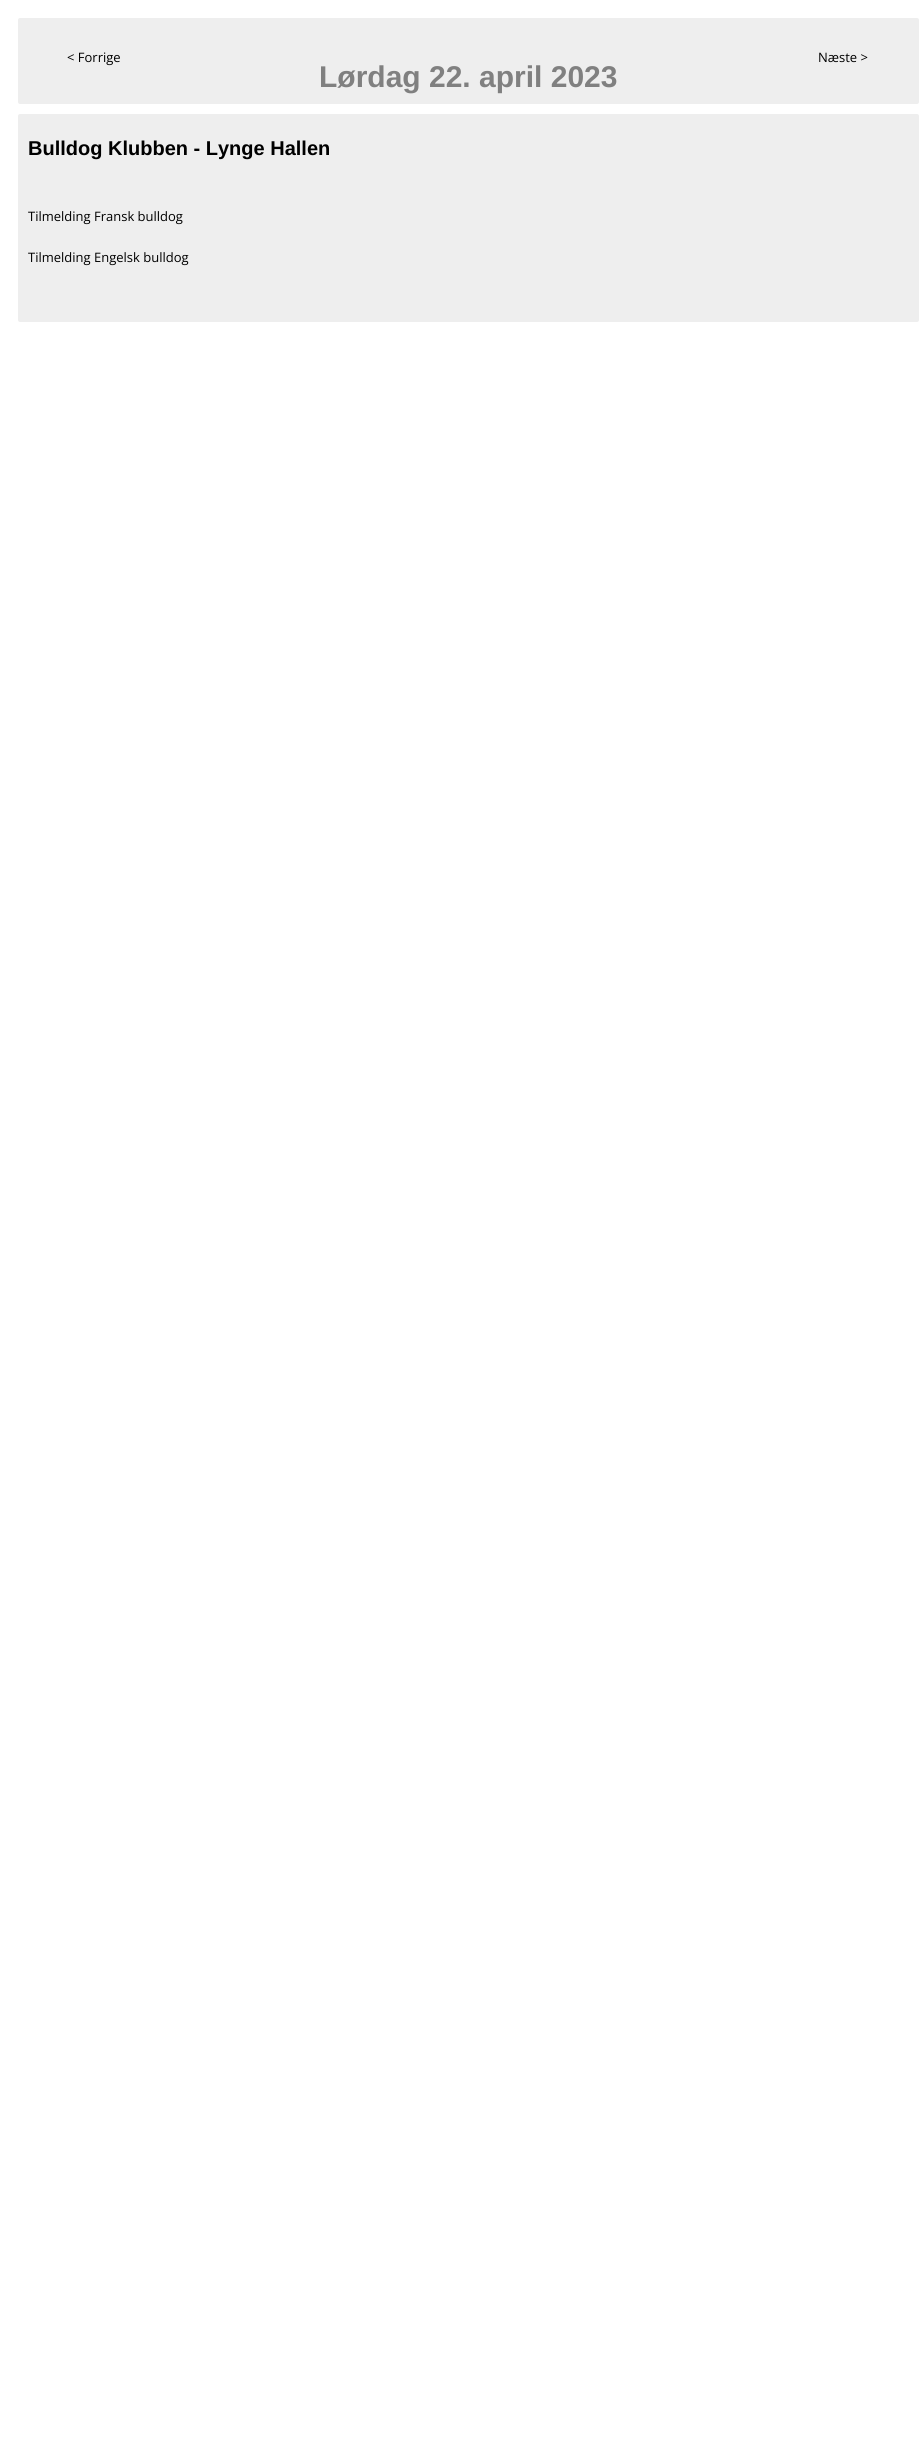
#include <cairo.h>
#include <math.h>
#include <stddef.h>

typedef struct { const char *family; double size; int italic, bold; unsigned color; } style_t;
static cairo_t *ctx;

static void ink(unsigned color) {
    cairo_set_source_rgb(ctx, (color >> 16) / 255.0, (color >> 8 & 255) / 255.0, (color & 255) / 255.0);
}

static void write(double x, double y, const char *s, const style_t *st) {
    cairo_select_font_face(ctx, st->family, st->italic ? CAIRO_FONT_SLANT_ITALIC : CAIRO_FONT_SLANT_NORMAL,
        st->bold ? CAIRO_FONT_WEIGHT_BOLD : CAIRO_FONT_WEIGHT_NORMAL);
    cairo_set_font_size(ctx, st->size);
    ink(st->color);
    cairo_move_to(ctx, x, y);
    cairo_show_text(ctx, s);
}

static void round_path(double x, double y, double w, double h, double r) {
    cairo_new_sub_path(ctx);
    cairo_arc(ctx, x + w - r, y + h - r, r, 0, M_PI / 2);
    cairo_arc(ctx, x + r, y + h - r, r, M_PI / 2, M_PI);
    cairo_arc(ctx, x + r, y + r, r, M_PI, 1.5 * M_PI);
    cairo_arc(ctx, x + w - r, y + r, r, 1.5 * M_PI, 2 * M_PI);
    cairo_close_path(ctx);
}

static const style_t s1 = {"Open Sans", 13, 0, 0, 0x000000};
static const style_t s2 = {"Liberation Sans", 30, 0, 1, 0x808080};
static const style_t s3 = {"Liberation Sans", 20, 0, 1, 0x000000};

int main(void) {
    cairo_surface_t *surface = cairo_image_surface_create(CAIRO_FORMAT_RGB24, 921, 2445);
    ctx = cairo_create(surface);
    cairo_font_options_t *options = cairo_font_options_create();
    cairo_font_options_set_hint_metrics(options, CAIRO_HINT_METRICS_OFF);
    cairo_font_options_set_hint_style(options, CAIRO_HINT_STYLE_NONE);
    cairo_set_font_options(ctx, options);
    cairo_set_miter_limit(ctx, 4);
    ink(0xffffff);
    cairo_paint(ctx);
    ink(0xeeeeee);
    round_path(18, 18, 901, 86, 2);
    cairo_fill(ctx);
    write(67, 62, "< Forrige", &s1);
    write(818, 62, "Næste >", &s1);
    write(319, 87, "Lørdag 22. april 2023", &s2);
    ink(0xeeeeee);
    round_path(18, 114, 901, 208, 2);
    cairo_fill(ctx);
    write(28, 155, "Bulldog Klubben - Lynge Hallen", &s3);
    write(28, 221, "Tilmelding Fransk bulldog", &s1);
    write(28, 262, "Tilmelding Engelsk bulldog", &s1);
    cairo_surface_write_to_png(surface, "screenshot.png");
    cairo_font_options_destroy(options);
    cairo_destroy(ctx);
    cairo_surface_destroy(surface);
    return 0;
}
